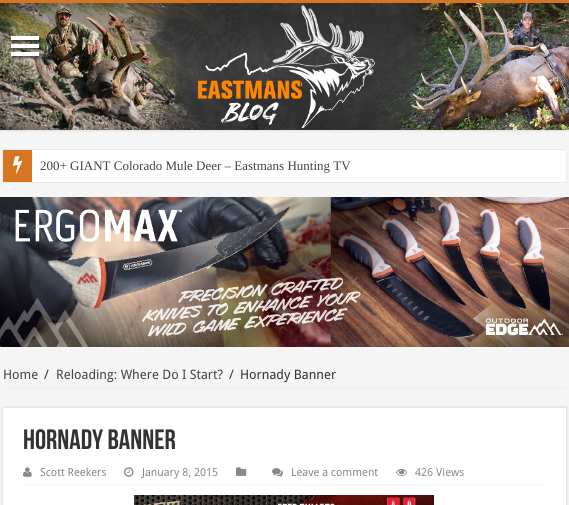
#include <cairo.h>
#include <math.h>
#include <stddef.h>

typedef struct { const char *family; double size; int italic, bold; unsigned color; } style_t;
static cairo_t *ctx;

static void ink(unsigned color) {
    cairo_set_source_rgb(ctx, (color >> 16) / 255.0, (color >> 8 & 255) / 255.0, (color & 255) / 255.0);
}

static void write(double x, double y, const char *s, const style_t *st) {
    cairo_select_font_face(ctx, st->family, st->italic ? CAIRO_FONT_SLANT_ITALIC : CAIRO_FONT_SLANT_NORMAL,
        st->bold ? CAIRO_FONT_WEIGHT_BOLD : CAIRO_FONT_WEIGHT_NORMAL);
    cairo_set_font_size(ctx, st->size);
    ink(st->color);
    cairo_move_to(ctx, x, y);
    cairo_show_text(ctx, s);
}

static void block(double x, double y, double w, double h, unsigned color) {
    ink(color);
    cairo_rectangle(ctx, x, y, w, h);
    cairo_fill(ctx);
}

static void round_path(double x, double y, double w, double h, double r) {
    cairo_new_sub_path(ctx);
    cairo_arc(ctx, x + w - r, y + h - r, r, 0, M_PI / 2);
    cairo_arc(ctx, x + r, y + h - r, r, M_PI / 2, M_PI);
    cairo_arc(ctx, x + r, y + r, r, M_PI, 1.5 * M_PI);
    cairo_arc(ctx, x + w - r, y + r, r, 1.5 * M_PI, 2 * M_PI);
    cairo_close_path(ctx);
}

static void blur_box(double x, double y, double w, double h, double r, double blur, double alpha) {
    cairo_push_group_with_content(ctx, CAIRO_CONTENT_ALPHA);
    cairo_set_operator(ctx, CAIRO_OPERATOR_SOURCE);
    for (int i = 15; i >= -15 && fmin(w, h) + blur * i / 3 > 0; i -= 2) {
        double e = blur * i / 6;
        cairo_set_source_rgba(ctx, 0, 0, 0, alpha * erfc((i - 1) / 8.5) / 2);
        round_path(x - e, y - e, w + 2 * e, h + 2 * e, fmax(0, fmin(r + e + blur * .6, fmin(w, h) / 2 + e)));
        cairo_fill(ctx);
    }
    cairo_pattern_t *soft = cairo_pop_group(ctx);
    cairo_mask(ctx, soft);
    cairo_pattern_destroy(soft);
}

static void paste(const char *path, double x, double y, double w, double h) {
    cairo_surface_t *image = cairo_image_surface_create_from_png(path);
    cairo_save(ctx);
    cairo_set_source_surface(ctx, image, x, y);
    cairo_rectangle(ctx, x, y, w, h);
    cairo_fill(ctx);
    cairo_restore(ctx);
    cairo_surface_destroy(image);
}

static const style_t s1 = {"Liberation Serif", 13, 0, 0, 0x444444};
static const style_t s2 = {"Droid Sans", 13, 0, 0, 0x444444};
static const style_t s3 = {"Droid Sans", 13, 0, 0, 0x333333};
static const style_t s4 = {"Bebas Neue", 28, 0, 1, 0x333333};
static const style_t s5 = {"Droid Sans", 11, 0, 0, 0x888888};

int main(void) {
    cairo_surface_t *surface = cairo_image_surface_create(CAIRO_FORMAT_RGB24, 569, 505);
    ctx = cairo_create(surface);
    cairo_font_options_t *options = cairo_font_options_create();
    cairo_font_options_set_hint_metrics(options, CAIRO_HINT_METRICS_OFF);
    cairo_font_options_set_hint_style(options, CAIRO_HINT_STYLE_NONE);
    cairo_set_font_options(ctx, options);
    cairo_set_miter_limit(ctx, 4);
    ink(0xf5f5f5);
    cairo_paint(ctx);
    ink(0xcacaca);
    blur_box(0, 0, 569, 130, 0, 1.5, 1);
    block(0, 0, 569, 3, 0xd67622);
    paste("pic1.png", 0, 3, 569, 127);
    ink(0x000000);
    blur_box(13, 38, 28, 4, 0, 1.5, 0.5);
    block(11, 36, 28, 4, 0xffffff);
    ink(0x000000);
    blur_box(13, 46, 28, 4, 0, 1.5, 0.5);
    block(11, 44, 28, 4, 0xffffff);
    ink(0x000000);
    blur_box(13, 54, 28, 4, 0, 1.5, 0.5);
    block(11, 52, 28, 4, 0xffffff);
    ink(0xcacaca);
    blur_box(3, 150, 563, 32, 0, 0.5, 1);
    block(32, 150, 534, 32, 0xffffff);
    block(3, 150, 29, 32, 0xd67622);
    paste("pic2.png", 13, 156, 10, 18);
    write(40, 170, "200+ GIANT Colorado Mule Deer – Eastmans Hunting TV", &s1);
    paste("pic3.png", 0, 197, 569, 150);
    block(3, 387, 563, 1, 0xeeeeee);
    write(3, 379, "Home", &s2);
    write(44, 379, "/", &s3);
    write(56, 379, "Reloading: Where Do I Start?", &s2);
    write(229, 379, "/", &s3);
    write(240, 379, "Hornady Banner", &s3);
    ink(0xcacaca);
    blur_box(3, 408, 563, 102, 0, 1.5, 1);
    block(3, 408, 563, 97, 0xffffff);
    write(23, 449, "Hornady Banner", &s4);
    block(23, 484, 523, 1, 0xf2f2f2);
    paste("pic4.png", 23, 467, 9, 10);
    write(40, 476, "Scott Reekers", &s5);
    paste("pic5.png", 124, 467, 10, 10);
    write(142, 476, "January 8, 2015", &s5);
    paste("pic6.png", 236, 467, 11, 9);
    paste("pic7.png", 272, 468, 11, 9);
    write(291, 476, "Leave a comment", &s5);
    paste("pic8.png", 396, 468, 11, 8);
    write(415, 476, "426 Views", &s5);
    paste("pic9.png", 134, 495, 300, 10);
    cairo_surface_write_to_png(surface, "screenshot.png");
    cairo_font_options_destroy(options);
    cairo_destroy(ctx);
    cairo_surface_destroy(surface);
    return 0;
}
